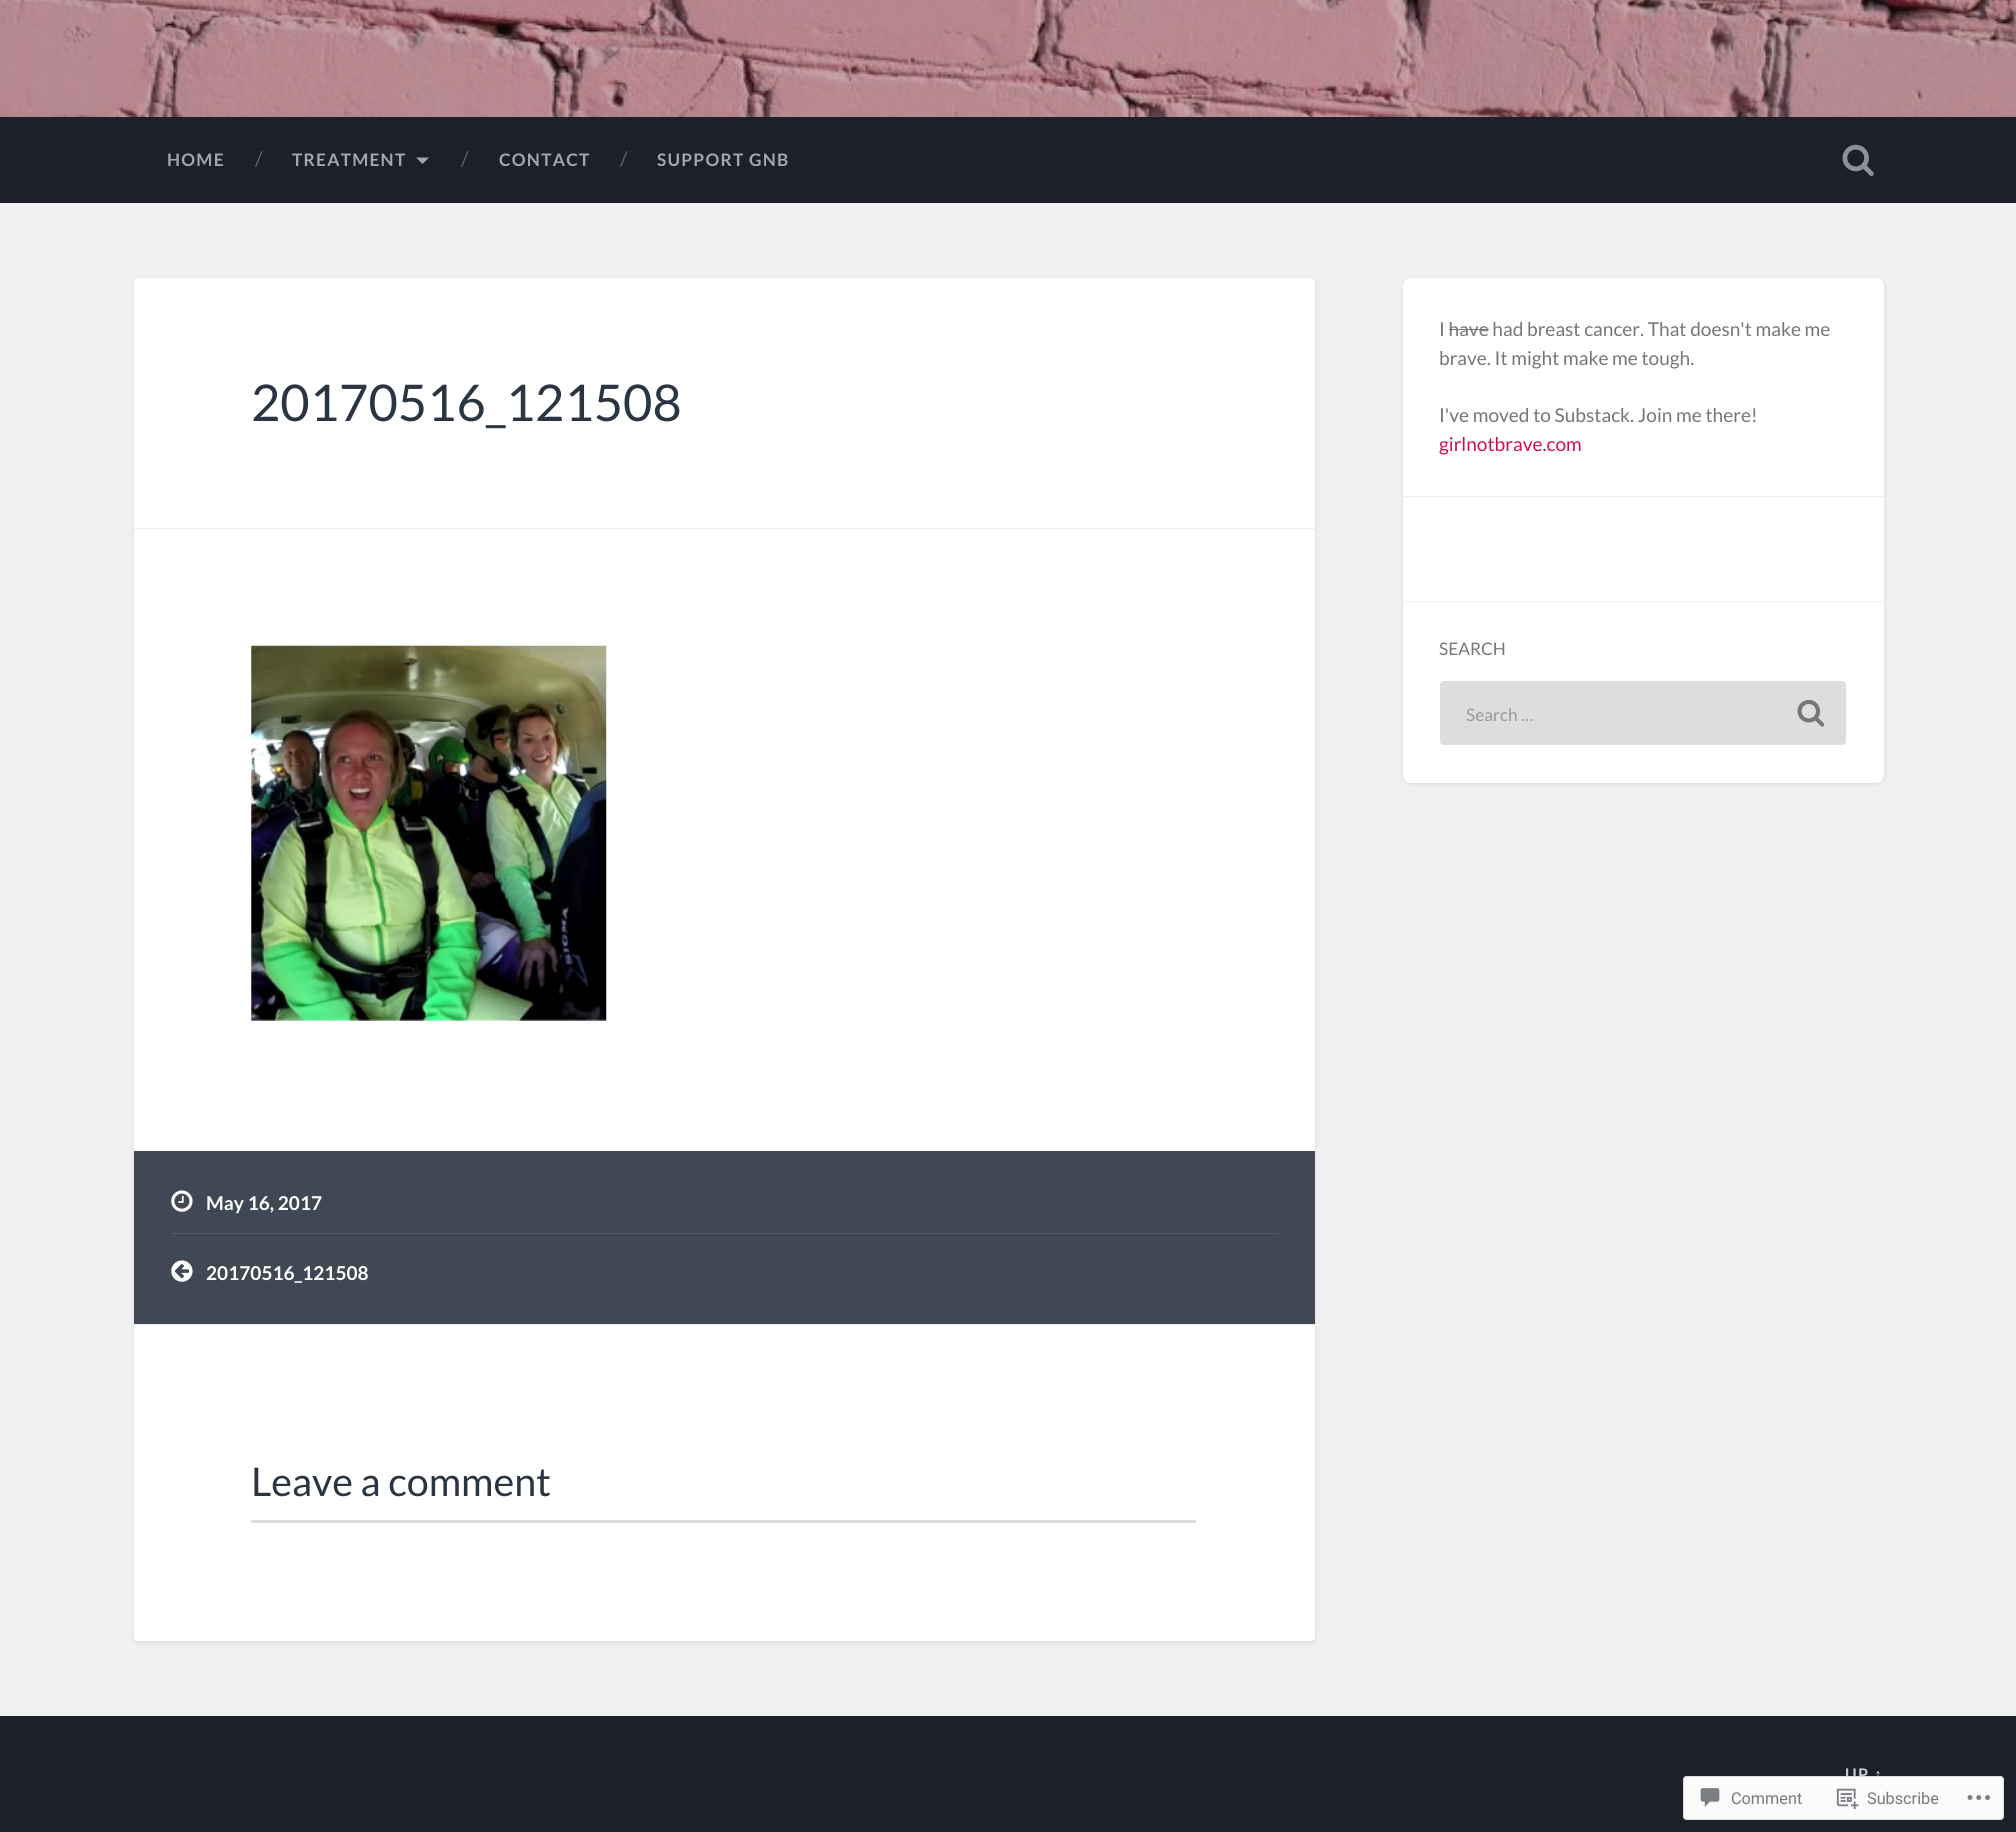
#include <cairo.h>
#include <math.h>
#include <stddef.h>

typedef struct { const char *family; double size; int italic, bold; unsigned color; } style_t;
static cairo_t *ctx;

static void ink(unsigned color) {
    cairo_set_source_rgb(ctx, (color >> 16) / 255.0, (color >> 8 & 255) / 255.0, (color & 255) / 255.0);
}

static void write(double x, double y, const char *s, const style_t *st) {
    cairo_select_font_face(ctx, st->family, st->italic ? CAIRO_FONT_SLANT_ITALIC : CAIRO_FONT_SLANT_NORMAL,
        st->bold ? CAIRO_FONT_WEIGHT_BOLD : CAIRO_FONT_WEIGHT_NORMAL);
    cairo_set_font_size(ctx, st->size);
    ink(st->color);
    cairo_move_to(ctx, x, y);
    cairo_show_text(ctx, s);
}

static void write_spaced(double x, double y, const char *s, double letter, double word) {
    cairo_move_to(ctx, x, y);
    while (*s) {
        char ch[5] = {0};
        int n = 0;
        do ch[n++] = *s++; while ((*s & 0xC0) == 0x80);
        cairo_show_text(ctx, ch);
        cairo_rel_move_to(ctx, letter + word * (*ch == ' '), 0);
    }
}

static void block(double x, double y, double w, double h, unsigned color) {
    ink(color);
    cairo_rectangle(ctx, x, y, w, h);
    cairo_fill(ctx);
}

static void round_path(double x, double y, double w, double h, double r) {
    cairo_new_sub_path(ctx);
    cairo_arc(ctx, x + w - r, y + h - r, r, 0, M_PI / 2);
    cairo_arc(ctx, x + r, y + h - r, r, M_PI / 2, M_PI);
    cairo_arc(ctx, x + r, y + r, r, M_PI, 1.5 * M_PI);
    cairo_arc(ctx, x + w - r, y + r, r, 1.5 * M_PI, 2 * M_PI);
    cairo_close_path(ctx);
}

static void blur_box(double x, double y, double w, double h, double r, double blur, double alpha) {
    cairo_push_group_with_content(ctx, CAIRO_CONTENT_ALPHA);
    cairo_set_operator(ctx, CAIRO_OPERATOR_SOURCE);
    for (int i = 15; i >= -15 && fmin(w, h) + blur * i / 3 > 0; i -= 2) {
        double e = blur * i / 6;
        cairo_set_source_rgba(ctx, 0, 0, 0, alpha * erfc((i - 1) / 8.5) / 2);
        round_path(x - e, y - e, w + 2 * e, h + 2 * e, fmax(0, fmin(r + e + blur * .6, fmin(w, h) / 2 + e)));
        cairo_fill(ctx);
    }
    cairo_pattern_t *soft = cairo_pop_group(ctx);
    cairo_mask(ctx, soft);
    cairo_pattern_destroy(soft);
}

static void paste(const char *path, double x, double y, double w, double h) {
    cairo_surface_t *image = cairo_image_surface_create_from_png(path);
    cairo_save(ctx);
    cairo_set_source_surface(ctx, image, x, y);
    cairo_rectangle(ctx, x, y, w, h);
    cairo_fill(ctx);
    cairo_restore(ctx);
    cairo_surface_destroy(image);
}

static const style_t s1 = {"Lato", 20, 0, 0, 0x60636b};
static const style_t s2 = {"Lato", 50.6, 0, 0, 0x2b3542};
static const style_t s3 = {"Lato", 19.1, 0, 1, 0xffffff};
static const style_t s4 = {"Lato", 39.5, 0, 0, 0x2b3542};
static const style_t s5 = {"Lato", 19.1, 0, 0, 0x767676};
static const style_t s6 = {"Lato", 19.1, 0, 0, 0xd60e51};
static const style_t s7 = {"Lato", 17.25, 0, 0, 0x767676};
static const style_t s8 = {"Lato", 17.25, 0, 0, 0x999999};
static const style_t s9 = {"Roboto", 16.25, 0, 0, 0x767a80};

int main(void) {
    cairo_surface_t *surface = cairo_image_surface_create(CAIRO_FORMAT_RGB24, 2016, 1832);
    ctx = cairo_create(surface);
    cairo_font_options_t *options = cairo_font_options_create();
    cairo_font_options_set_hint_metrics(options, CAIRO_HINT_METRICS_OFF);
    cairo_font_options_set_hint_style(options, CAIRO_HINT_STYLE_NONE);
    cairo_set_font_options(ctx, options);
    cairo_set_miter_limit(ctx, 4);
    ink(0xf1f1f1);
    cairo_paint(ctx);
    block(0, 117, 2016, 86, 0x1c202b);
    paste("pic1.png", 0, 0, 2016, 117);
    cairo_select_font_face(ctx, "Lato", CAIRO_FONT_SLANT_NORMAL, CAIRO_FONT_WEIGHT_BOLD);
    cairo_set_font_size(ctx, 17.25);
    ink(0xa4a6aa);
    write_spaced(167, 166, "HOME", 1.25, 0);
    write(255, 166, "/", &s1);
    cairo_select_font_face(ctx, "Lato", CAIRO_FONT_SLANT_NORMAL, CAIRO_FONT_WEIGHT_BOLD);
    cairo_set_font_size(ctx, 17.25);
    ink(0xa4a6aa);
    write_spaced(292, 166, "TREATMENT", 1.25, 0);
    cairo_new_path(ctx);
    cairo_move_to(ctx, 416, 157.5);
    cairo_line_to(ctx, 429, 157.5);
    cairo_line_to(ctx, 422.5, 164);
    cairo_close_path(ctx);
    cairo_fill(ctx);
    write(461, 166, "/", &s1);
    cairo_select_font_face(ctx, "Lato", CAIRO_FONT_SLANT_NORMAL, CAIRO_FONT_WEIGHT_BOLD);
    cairo_set_font_size(ctx, 17.25);
    ink(0xa4a6aa);
    write_spaced(499, 166, "CONTACT", 1.25, 0);
    write(620, 166, "/", &s1);
    cairo_select_font_face(ctx, "Lato", CAIRO_FONT_SLANT_NORMAL, CAIRO_FONT_WEIGHT_BOLD);
    cairo_set_font_size(ctx, 17.25);
    ink(0xa4a6aa);
    write_spaced(657, 166, "SUPPORT GNB", 1.25, 0);
    paste("pic2.png", 1842, 144, 32, 32);
    ink(0x000000);
    blur_box(134, 279, 1181, 1364, 4, 2.5, 0.1);
    ink(0xffffff);
    round_path(134, 278, 1181, 1363, 4);
    cairo_fill(ctx);
    block(134, 528, 1181, 1, 0xeeeeee);
    write(251, 421, "20170516_121508", &s2);
    paste("pic3.png", 251, 645, 356, 376);
    block(134, 1151, 1181, 173, 0x3f4854);
    paste("pic4.png", 171, 1190, 22, 22);
    write(206, 1210, "May 16, 2017", &s3);
    block(171, 1233, 1107, 1, 0x525a65);
    paste("pic5.png", 171, 1260, 22, 22);
    write(206, 1280, "20170516_121508", &s3);
    cairo_new_path(ctx);
    cairo_move_to(ctx, 134, 1324);
    cairo_line_to(ctx, 1315, 1324);
    cairo_line_to(ctx, 1315, 1637);
    cairo_curve_to(ctx, 1315, 1639, 1313, 1641, 1311, 1641);
    cairo_line_to(ctx, 138, 1641);
    cairo_curve_to(ctx, 136, 1641, 134, 1639, 134, 1637);
    cairo_close_path(ctx);
    cairo_fill(ctx);
    block(134, 1324, 1181, 1, 0xeeeeee);
    write(251, 1496, "Leave a comment", &s4);
    block(251, 1520, 945, 3, 0xdcdcde);
    ink(0x000000);
    blur_box(1403, 279, 481, 505, 8, 2.5, 0.1);
    ink(0xffffff);
    round_path(1403, 278, 481, 505, 8);
    cairo_fill(ctx);
    write(1439, 336, "I have had breast cancer. That doesn't make me", &s5);
    block(1449, 329, 40, 1, 0x767676);
    write(1439, 365, "brave. It might make me tough.", &s5);
    write(1439, 422, "I've moved to Substack. Join me there!", &s5);
    write(1439, 451, "girlnotbrave.com", &s6);
    block(1403, 496, 481, 1, 0xeeeeee);
    block(1403, 601, 481, 1, 0xeeeeee);
    write(1439, 655, "SEARCH", &s7);
    ink(0xdddddd);
    round_path(1440, 681, 406, 64, 4);
    cairo_fill(ctx);
    write(1466, 721, "Search …", &s8);
    paste("pic6.png", 1797, 699, 28, 28);
    block(0, 1716, 2016, 116, 0x1c202b);
    cairo_select_font_face(ctx, "Lato", CAIRO_FONT_SLANT_NORMAL, CAIRO_FONT_WEIGHT_BOLD);
    cairo_set_font_size(ctx, 16);
    ink(0xcccccc);
    write_spaced(1845, 1780, "UP", 1.25, 0);
    cairo_select_font_face(ctx, "Liberation Sans", CAIRO_FONT_SLANT_NORMAL, CAIRO_FONT_WEIGHT_BOLD);
    write_spaced(1874, 1780, "↑", 1.25, 0);
    cairo_set_source_rgba(ctx, 1, 1, 1, 0.98);
    round_path(1683, 1776, 321, 44, 4);
    cairo_fill(ctx);
    round_path(1683.5, 1776.5, 320, 43, 3.5);
    cairo_set_source_rgba(ctx, 0.863, 0.863, 0.871, 0.98);
    cairo_set_line_width(ctx, 1);
    cairo_stroke(ctx);
    paste("pic7.png", 1700, 1788, 20, 19);
    write(1731, 1804, "Comment", &s9);
    paste("pic8.png", 1836, 1788, 23, 22);
    write(1867, 1804, "Subscribe", &s9);
    paste("pic9.png", 1967, 1795, 23, 5);
    cairo_surface_write_to_png(surface, "screenshot.png");
    cairo_font_options_destroy(options);
    cairo_destroy(ctx);
    cairo_surface_destroy(surface);
    return 0;
}
